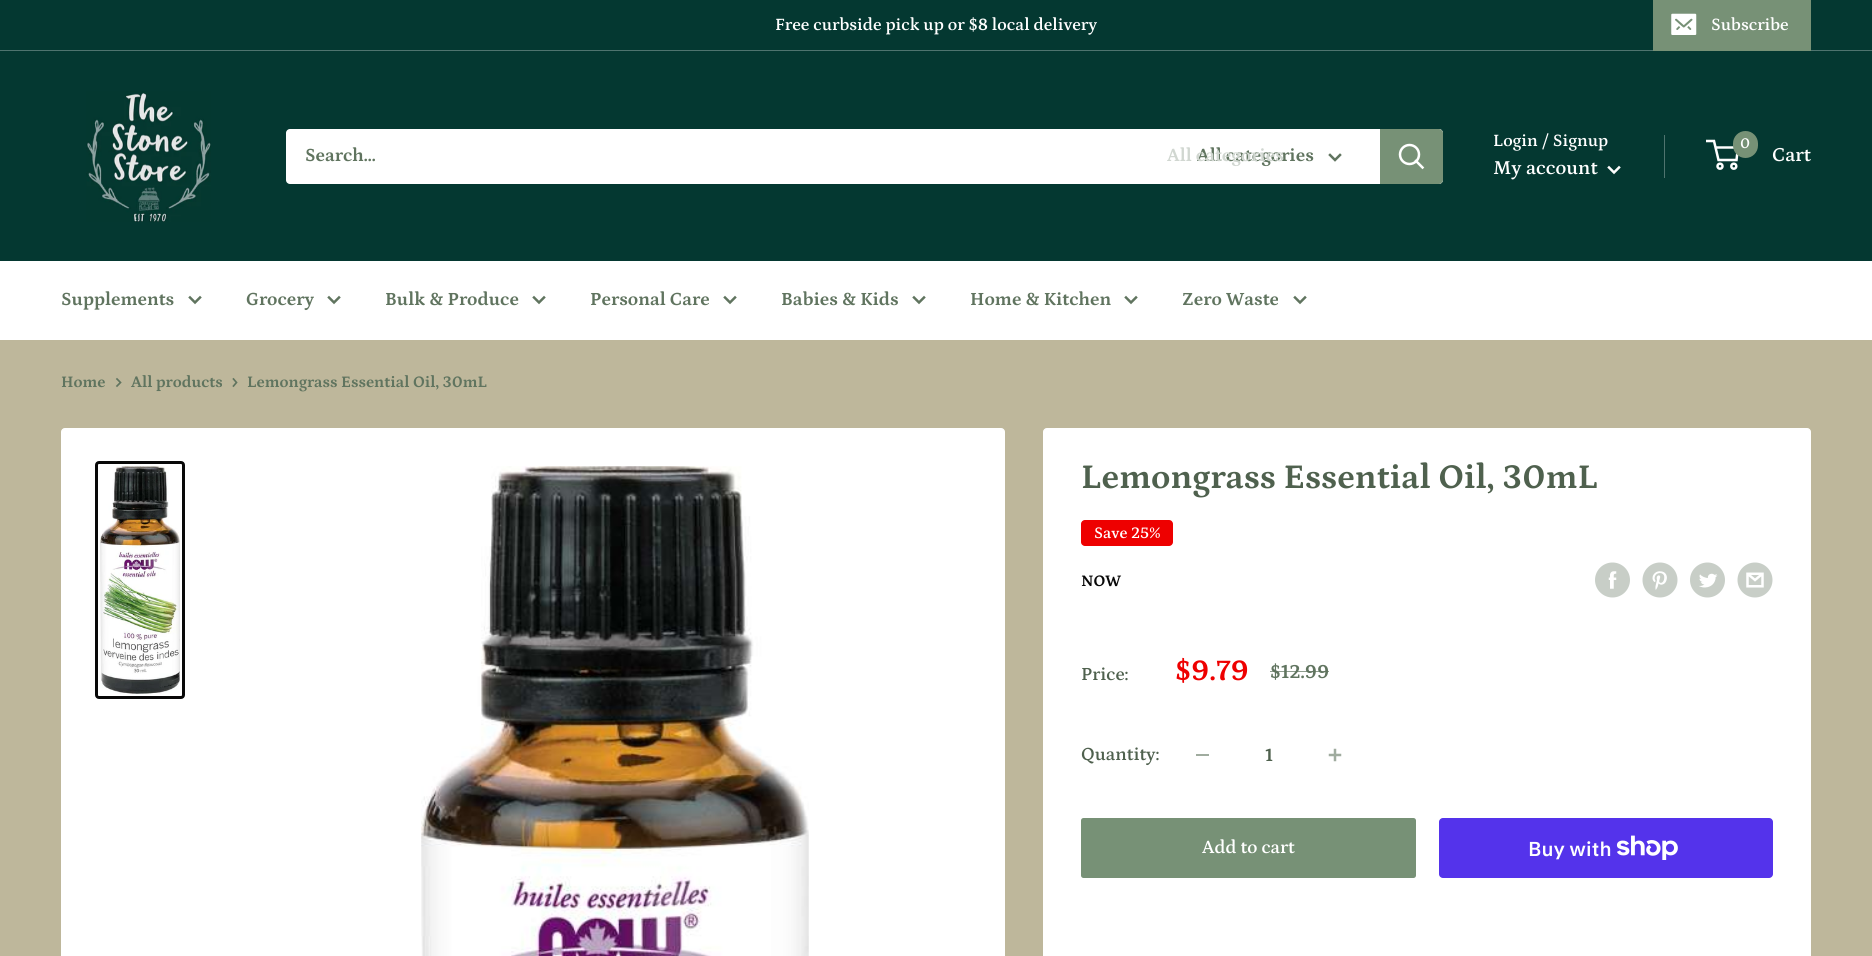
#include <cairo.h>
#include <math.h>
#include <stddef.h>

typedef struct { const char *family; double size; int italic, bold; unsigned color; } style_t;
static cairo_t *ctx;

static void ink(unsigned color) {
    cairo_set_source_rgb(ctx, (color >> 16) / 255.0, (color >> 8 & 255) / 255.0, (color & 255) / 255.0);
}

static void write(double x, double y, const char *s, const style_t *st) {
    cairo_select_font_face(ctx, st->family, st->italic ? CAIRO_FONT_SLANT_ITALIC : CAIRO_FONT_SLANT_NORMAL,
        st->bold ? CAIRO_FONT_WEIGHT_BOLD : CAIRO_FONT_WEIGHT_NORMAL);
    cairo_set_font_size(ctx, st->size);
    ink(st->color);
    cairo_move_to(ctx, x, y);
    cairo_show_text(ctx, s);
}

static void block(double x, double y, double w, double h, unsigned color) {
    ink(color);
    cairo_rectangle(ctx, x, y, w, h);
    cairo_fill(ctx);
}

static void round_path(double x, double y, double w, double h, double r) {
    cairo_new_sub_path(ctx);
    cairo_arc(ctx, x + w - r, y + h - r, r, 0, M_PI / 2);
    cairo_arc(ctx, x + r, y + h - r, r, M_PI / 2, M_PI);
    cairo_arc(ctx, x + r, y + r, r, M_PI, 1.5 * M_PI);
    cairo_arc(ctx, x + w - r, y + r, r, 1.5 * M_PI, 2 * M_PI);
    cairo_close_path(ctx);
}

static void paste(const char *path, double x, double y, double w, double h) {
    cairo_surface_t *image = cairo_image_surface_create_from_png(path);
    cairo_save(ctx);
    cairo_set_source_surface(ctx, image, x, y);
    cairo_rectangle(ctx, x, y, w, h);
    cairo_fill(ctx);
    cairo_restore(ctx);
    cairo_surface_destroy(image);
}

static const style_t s1 = {"Petrona SemiBold", 17.5, 0, 0, 0xffffff};
static const style_t s2 = {"Petrona", 18.75, 0, 1, 0x60745f};
static const style_t s3 = {"Petrona", 18.75, 0, 1, 0xd1d7d1};
static const style_t s4 = {"Petrona SemiBold", 20, 0, 0, 0xffffff};
static const style_t s5 = {"Petrona SemiBold", 15, 0, 0, 0xffffff};
static const style_t s6 = {"Petrona", 16.25, 0, 1, 0x60745f};
static const style_t s7 = {"Petrona", 35, 0, 1, 0x4f614e};
static const style_t s8 = {"Petrona SemiBold", 16.25, 0, 0, 0xffffff};
static const style_t s9 = {"Petrona", 16.25, 0, 1, 0x080808};
static const style_t s10 = {"Petrona SemiBold", 18.75, 0, 0, 0x4f614e};
static const style_t s11 = {"Petrona", 30, 0, 1, 0xee0000};
static const style_t s12 = {"Petrona", 20, 0, 1, 0x60745f};
static const style_t s13 = {"Petrona", 18.75, 0, 1, 0x4f614e};
static const style_t s14 = {"Petrona SemiBold", 18.75, 0, 0, 0xffffff};
static const style_t s15 = {"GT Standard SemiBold", 20, 0, 0, 0xffffff};

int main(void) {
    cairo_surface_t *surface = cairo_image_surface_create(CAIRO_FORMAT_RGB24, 1872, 956);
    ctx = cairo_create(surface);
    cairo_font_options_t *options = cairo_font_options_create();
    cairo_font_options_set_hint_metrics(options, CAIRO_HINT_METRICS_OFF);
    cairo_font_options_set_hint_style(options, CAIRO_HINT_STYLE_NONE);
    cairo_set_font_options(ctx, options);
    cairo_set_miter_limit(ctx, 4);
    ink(0xbeb79b);
    cairo_paint(ctx);
    block(0, 0, 1872, 50, 0x043831);
    block(0, 50, 1872, 1, 0x4f746f);
    write(775, 30, "Free curbside pick up or $8 local delivery", &s1);
    block(1653, 0, 158, 51, 0x779176);
    paste("pic1.png", 1671, 13, 26, 22);
    write(1711, 30, "Subscribe", &s1);
    block(0, 51, 1872, 210, 0x043831);
    paste("pic2.png", 86, 91, 125, 131);
    ink(0xffffff);
    round_path(286, 129, 1157, 55, 4);
    cairo_fill(ctx);
    write(305, 161, "Search...", &s2);
    write(1197, 161, "All categories", &s2);
    write(1167, 161, "All categories", &s3);
    cairo_new_path(ctx);
    cairo_move_to(ctx, 1340, 155);
    cairo_line_to(ctx, 1335, 160);
    cairo_line_to(ctx, 1330, 155);
    ink(0x60745f);
    cairo_set_line_width(ctx, 2.5);
    cairo_set_line_cap(ctx, CAIRO_LINE_CAP_SQUARE);
    cairo_stroke(ctx);
    ink(0x779176);
    cairo_new_path(ctx);
    cairo_move_to(ctx, 1380, 129);
    cairo_line_to(ctx, 1439, 129);
    cairo_curve_to(ctx, 1441, 129, 1443, 131, 1443, 133);
    cairo_line_to(ctx, 1443, 180);
    cairo_curve_to(ctx, 1443, 182, 1441, 184, 1439, 184);
    cairo_line_to(ctx, 1380, 184);
    cairo_close_path(ctx);
    cairo_fill(ctx);
    cairo_new_path(ctx);
    cairo_move_to(ctx, 1422.5, 167.5);
    cairo_line_to(ctx, 1416, 161);
    ink(0xffffff);
    cairo_stroke(ctx);
    cairo_arc(ctx, 1409.5, 154.5, 9.5, 0, 2 * M_PI);
    cairo_set_line_cap(ctx, CAIRO_LINE_CAP_BUTT);
    cairo_stroke(ctx);
    write(1493, 146, "Login / Signup", &s1);
    block(1664, 135, 1, 43, 0x4f746f);
    write(1493, 174, "My account", &s4);
    cairo_new_path(ctx);
    cairo_move_to(ctx, 1619, 167.5);
    cairo_line_to(ctx, 1614, 172.5);
    cairo_line_to(ctx, 1609, 167.5);
    cairo_set_line_cap(ctx, CAIRO_LINE_CAP_SQUARE);
    cairo_stroke(ctx);
    cairo_arc(ctx, 1720, 166.2, 2.5, 0, 2 * M_PI);
    cairo_set_line_cap(ctx, CAIRO_LINE_CAP_BUTT);
    cairo_stroke(ctx);
    cairo_arc(ctx, 1733.8, 166.2, 2.5, 0, 2 * M_PI);
    cairo_stroke(ctx);
    cairo_new_path(ctx);
    cairo_move_to(ctx, 1715.5, 147.5);
    cairo_line_to(ctx, 1738, 147.5);
    cairo_line_to(ctx, 1736.5, 160);
    cairo_line_to(ctx, 1718.5, 160);
    cairo_line_to(ctx, 1714, 141);
    cairo_line_to(ctx, 1706, 141);
    cairo_stroke(ctx);
    ink(0x779176);
    round_path(1733, 131, 25, 27, 12.5);
    cairo_fill(ctx);
    write(1740, 148, "0", &s5);
    write(1772, 161, "Cart", &s4);
    block(0, 261, 1872, 79, 0xffffff);
    write(61, 305, "Supplements", &s2);
    cairo_new_path(ctx);
    cairo_move_to(ctx, 200, 297.5);
    cairo_line_to(ctx, 195, 302.5);
    cairo_line_to(ctx, 190, 297.5);
    cairo_set_line_cap(ctx, CAIRO_LINE_CAP_SQUARE);
    cairo_stroke(ctx);
    write(246, 305, "Grocery", &s2);
    cairo_new_path(ctx);
    cairo_move_to(ctx, 339, 297.5);
    cairo_line_to(ctx, 334, 302.5);
    cairo_line_to(ctx, 329, 297.5);
    cairo_stroke(ctx);
    write(385, 305, "Bulk & Produce", &s2);
    cairo_new_path(ctx);
    cairo_move_to(ctx, 544, 297.5);
    cairo_line_to(ctx, 539, 302.5);
    cairo_line_to(ctx, 534, 297.5);
    cairo_stroke(ctx);
    write(590, 305, "Personal Care", &s2);
    cairo_new_path(ctx);
    cairo_move_to(ctx, 735, 297.5);
    cairo_line_to(ctx, 730, 302.5);
    cairo_line_to(ctx, 725, 297.5);
    cairo_stroke(ctx);
    write(781, 305, "Babies & Kids", &s2);
    cairo_new_path(ctx);
    cairo_move_to(ctx, 924, 297.5);
    cairo_line_to(ctx, 919, 302.5);
    cairo_line_to(ctx, 914, 297.5);
    cairo_stroke(ctx);
    write(970, 305, "Home & Kitchen", &s2);
    cairo_new_path(ctx);
    cairo_move_to(ctx, 1136, 297.5);
    cairo_line_to(ctx, 1131, 302.5);
    cairo_line_to(ctx, 1126, 297.5);
    cairo_stroke(ctx);
    write(1182, 305, "Zero Waste", &s2);
    cairo_new_path(ctx);
    cairo_move_to(ctx, 1305, 297.5);
    cairo_line_to(ctx, 1300, 302.5);
    cairo_line_to(ctx, 1295, 297.5);
    cairo_stroke(ctx);
    write(61, 387, "Home", &s6);
    cairo_new_path(ctx);
    cairo_move_to(ctx, 117, 379);
    cairo_line_to(ctx, 120.5, 382.5);
    cairo_line_to(ctx, 117, 386);
    cairo_set_line_width(ctx, 1.7);
    cairo_stroke(ctx);
    write(131, 387, "All products", &s6);
    cairo_new_path(ctx);
    cairo_move_to(ctx, 233.5, 379);
    cairo_line_to(ctx, 236.5, 382.5);
    cairo_line_to(ctx, 233.5, 386);
    cairo_stroke(ctx);
    write(247, 387, "Lemongrass Essential Oil, 30mL", &s6);
    ink(0xffffff);
    round_path(61.5, 428.5, 943, 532, 3.5);
    cairo_fill_preserve(ctx);
    cairo_set_line_width(ctx, 1);
    cairo_set_line_cap(ctx, CAIRO_LINE_CAP_BUTT);
    cairo_stroke(ctx);
    round_path(96.5, 462.5, 87, 235, 2.5);
    ink(0x080808);
    cairo_set_line_width(ctx, 3);
    cairo_stroke(ctx);
    paste("pic3.png", 100, 466, 80, 228);
    paste("pic4.png", 421, 466, 388, 490);
    ink(0xffffff);
    round_path(1043.5, 428.5, 767, 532, 3.5);
    cairo_fill_preserve(ctx);
    cairo_set_line_width(ctx, 1);
    cairo_stroke(ctx);
    write(1081, 488, "Lemongrass Essential Oil, 30mL", &s7);
    ink(0xee0000);
    round_path(1081, 520, 92, 26, 4);
    cairo_fill(ctx);
    write(1094, 538, "Save 25%", &s8);
    write(1081, 586, "NOW", &s9);
    paste("pic5.png", 1595, 562, 35, 36);
    paste("pic6.png", 1642, 562, 36, 36);
    paste("pic7.png", 1690, 562, 35, 36);
    paste("pic8.png", 1737, 562, 36, 36);
    write(1081, 680, "Price:", &s10);
    write(1175, 680, "$9.79", &s11);
    write(1270, 678, "$12.99", &s12);
    cairo_set_source_rgba(ctx, 0.376, 0.455, 0.373, 0.7);
    cairo_rectangle(ctx, 1270, 671, 59, 1);
    cairo_fill(ctx);
    write(1081, 760, "Quantity:", &s10);
    block(1196, 754, 13, 2, 0xa0ac9f);
    write(1265, 761, "1", &s13);
    paste("pic9.png", 1328, 748, 14, 14);
    ink(0x779176);
    round_path(1081, 818, 335, 60, 2.5);
    cairo_fill(ctx);
    write(1202, 853, "Add to cart", &s14);
    ink(0x5433eb);
    round_path(1439, 818, 334, 60, 4);
    cairo_fill(ctx);
    write(1528, 856, "Buy with", &s15);
    paste("pic10.png", 1616, 835, 62, 25);
    cairo_surface_write_to_png(surface, "screenshot.png");
    cairo_font_options_destroy(options);
    cairo_destroy(ctx);
    cairo_surface_destroy(surface);
    return 0;
}
